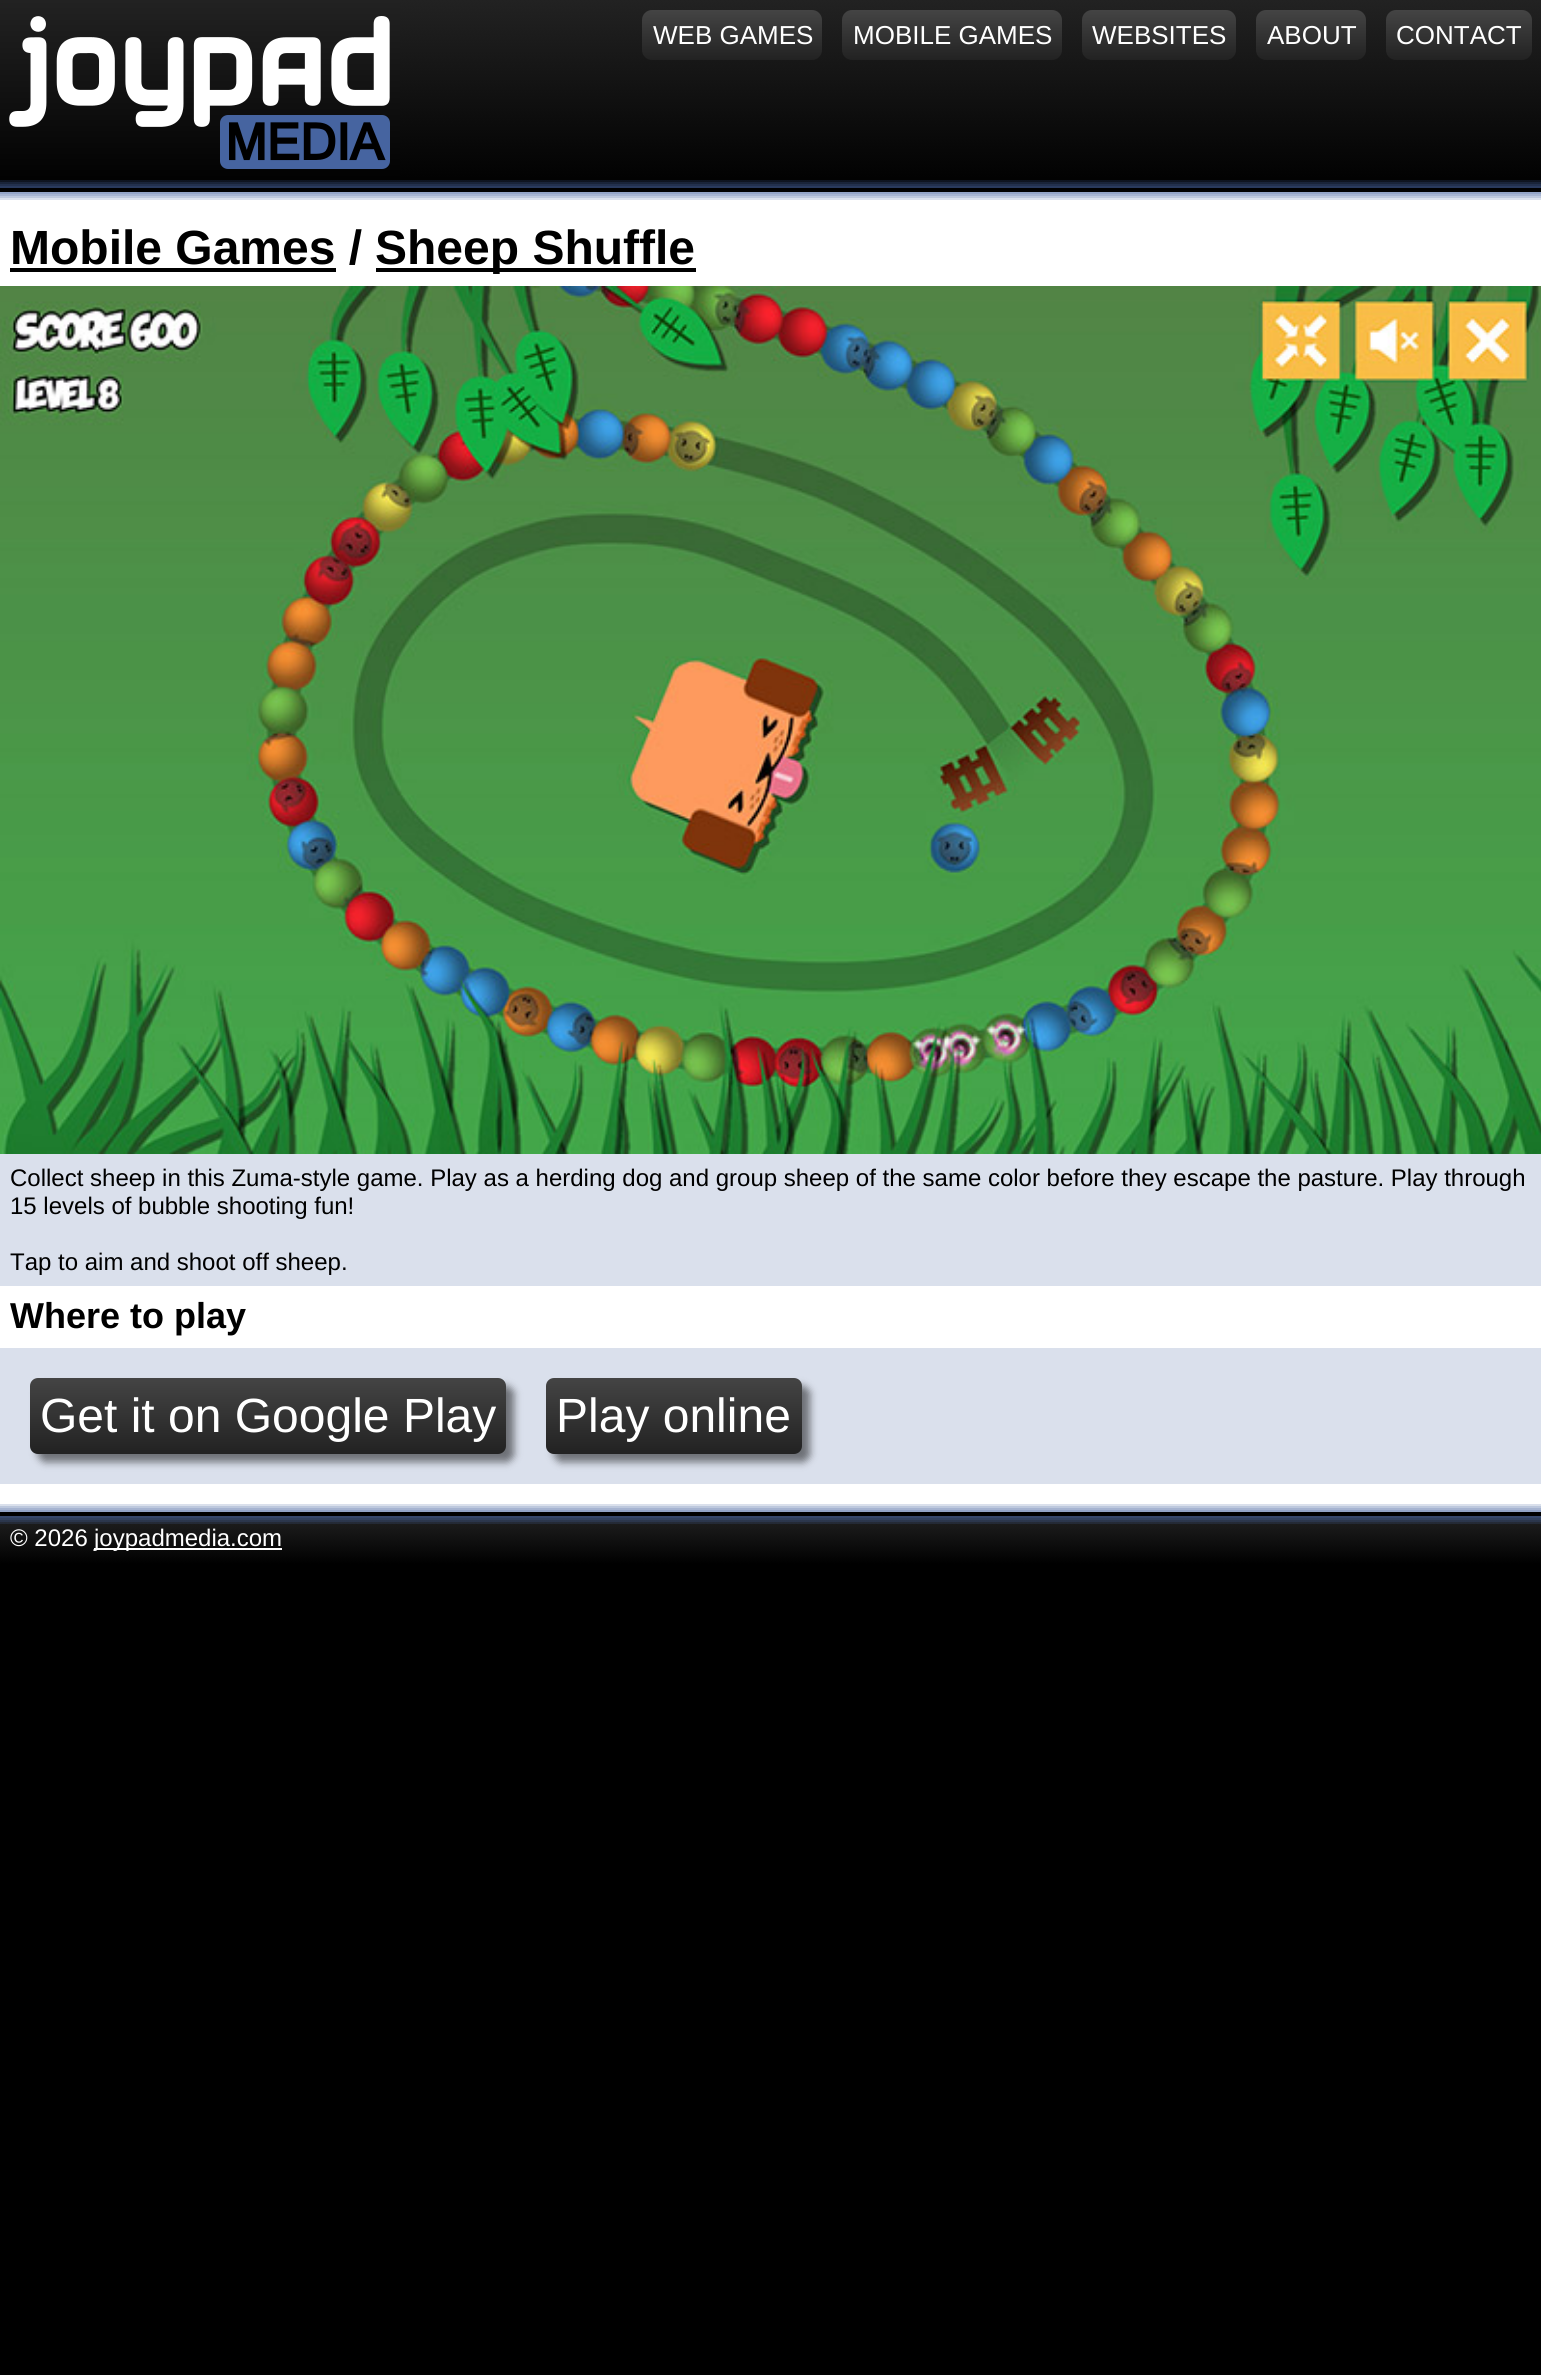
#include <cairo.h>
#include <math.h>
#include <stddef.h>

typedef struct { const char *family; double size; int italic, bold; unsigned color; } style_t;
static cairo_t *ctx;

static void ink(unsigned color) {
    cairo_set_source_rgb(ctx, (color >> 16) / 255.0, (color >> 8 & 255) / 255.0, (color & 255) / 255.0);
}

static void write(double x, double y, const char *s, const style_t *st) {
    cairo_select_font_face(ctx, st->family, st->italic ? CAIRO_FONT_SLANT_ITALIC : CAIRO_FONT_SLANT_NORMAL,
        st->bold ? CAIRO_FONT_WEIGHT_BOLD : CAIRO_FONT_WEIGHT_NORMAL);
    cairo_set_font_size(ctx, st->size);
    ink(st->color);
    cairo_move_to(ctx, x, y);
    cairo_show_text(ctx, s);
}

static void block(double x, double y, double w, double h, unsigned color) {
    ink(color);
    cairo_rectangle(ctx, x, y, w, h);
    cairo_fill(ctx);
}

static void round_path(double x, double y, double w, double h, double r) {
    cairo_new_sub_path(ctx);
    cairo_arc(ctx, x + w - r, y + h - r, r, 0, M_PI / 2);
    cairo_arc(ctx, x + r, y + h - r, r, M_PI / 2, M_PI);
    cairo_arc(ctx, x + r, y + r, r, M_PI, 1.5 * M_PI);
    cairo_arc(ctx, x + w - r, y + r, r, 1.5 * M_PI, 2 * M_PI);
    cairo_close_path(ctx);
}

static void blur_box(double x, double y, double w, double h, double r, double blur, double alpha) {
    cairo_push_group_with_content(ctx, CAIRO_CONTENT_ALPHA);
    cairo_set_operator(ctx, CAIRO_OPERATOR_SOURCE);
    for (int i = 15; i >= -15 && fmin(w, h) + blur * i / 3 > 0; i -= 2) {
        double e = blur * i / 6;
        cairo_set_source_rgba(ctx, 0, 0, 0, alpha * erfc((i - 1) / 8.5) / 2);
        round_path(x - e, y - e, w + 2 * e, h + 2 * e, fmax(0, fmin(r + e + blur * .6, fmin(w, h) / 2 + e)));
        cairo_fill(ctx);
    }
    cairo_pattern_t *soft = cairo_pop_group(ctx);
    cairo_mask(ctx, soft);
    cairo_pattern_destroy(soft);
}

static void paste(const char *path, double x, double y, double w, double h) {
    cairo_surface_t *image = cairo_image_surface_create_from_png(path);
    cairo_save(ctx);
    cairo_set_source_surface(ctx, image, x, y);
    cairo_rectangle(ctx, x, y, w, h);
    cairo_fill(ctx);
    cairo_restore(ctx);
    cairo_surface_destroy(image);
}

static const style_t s1 = {"Liberation Sans", 26, 0, 0, 0xffffff};
static const style_t s2 = {"Liberation Sans", 48, 0, 1, 0x000000};
static const style_t s3 = {"Liberation Sans", 24, 0, 0, 0x000000};
static const style_t s4 = {"Liberation Sans", 36, 0, 1, 0x000000};
static const style_t s5 = {"Liberation Sans", 48, 0, 0, 0xffffff};
static const style_t s6 = {"Liberation Sans", 24, 0, 0, 0xffffff};

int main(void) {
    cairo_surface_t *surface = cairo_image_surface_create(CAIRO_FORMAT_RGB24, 1541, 2375);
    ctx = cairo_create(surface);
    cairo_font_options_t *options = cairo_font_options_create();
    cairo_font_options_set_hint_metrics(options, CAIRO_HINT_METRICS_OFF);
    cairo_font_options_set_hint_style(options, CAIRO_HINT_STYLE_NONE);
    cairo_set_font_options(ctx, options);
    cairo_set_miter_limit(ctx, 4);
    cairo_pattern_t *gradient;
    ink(0x000000);
    cairo_paint(ctx);
    block(0, 192, 1541, 1320, 0xffffff);
    paste("pic1.png", 0, 0, 1541, 200);
    paste("pic2.png", 0, 0, 400, 180);
    gradient = cairo_pattern_create_linear(732, 10, 732, 60);
    cairo_pattern_add_color_stop_rgba(gradient, 0, 0.267, 0.267, 0.267, 1);
    cairo_pattern_add_color_stop_rgba(gradient, 1, 0.133, 0.133, 0.133, 1);
    cairo_set_source(ctx, gradient);
    cairo_pattern_destroy(gradient);
    round_path(642, 10, 180, 50, 10);
    cairo_fill(ctx);
    write(653, 44, "WEB GAMES", &s1);
    gradient = cairo_pattern_create_linear(952, 10, 952, 60);
    cairo_pattern_add_color_stop_rgba(gradient, 0, 0.267, 0.267, 0.267, 1);
    cairo_pattern_add_color_stop_rgba(gradient, 1, 0.133, 0.133, 0.133, 1);
    cairo_set_source(ctx, gradient);
    cairo_pattern_destroy(gradient);
    round_path(842, 10, 220, 50, 10);
    cairo_fill(ctx);
    write(853, 44, "MOBILE GAMES", &s1);
    gradient = cairo_pattern_create_linear(1159, 10, 1159, 60);
    cairo_pattern_add_color_stop_rgba(gradient, 0, 0.267, 0.267, 0.267, 1);
    cairo_pattern_add_color_stop_rgba(gradient, 1, 0.133, 0.133, 0.133, 1);
    cairo_set_source(ctx, gradient);
    cairo_pattern_destroy(gradient);
    round_path(1082, 10, 154, 50, 10);
    cairo_fill(ctx);
    write(1092, 44, "WEBSITES", &s1);
    gradient = cairo_pattern_create_linear(1311, 10, 1311, 60);
    cairo_pattern_add_color_stop_rgba(gradient, 0, 0.267, 0.267, 0.267, 1);
    cairo_pattern_add_color_stop_rgba(gradient, 1, 0.133, 0.133, 0.133, 1);
    cairo_set_source(ctx, gradient);
    cairo_pattern_destroy(gradient);
    round_path(1256, 10, 110, 50, 10);
    cairo_fill(ctx);
    write(1267, 44, "ABOUT", &s1);
    gradient = cairo_pattern_create_linear(1459, 10, 1459, 60);
    cairo_pattern_add_color_stop_rgba(gradient, 0, 0.267, 0.267, 0.267, 1);
    cairo_pattern_add_color_stop_rgba(gradient, 1, 0.133, 0.133, 0.133, 1);
    cairo_set_source(ctx, gradient);
    cairo_pattern_destroy(gradient);
    round_path(1386, 10, 146, 50, 10);
    cairo_fill(ctx);
    write(1396, 44, "CONTACT", &s1);
    write(10, 264, "Mobile Games /", &s2);
    block(10, 268, 326, 4, 0x000000);
    block(376, 268, 320, 4, 0x000000);
    write(375, 264, "Sheep Shuffle", &s2);
    paste("pic3.png", 0, 286, 1541, 868);
    block(0, 1154, 1541, 132, 0xdae0ec);
    write(10, 1186, "Collect sheep in this Zuma-style game. Play as a herding dog and group sheep of the same color before they escape the pasture. Play through", &s3);
    write(10, 1214, "15 levels of bubble shooting fun!", &s3);
    write(10, 1270, "Tap to aim and shoot off sheep.", &s3);
    write(10, 1328, "Where to play", &s4);
    block(0, 1348, 1541, 136, 0xdae0ec);
    ink(0x000000);
    blur_box(38, 1386, 476, 76, 8, 4, 0.5);
    gradient = cairo_pattern_create_linear(268, 1378, 268, 1454);
    cairo_pattern_add_color_stop_rgba(gradient, 0, 0.267, 0.267, 0.267, 1);
    cairo_pattern_add_color_stop_rgba(gradient, 1, 0.133, 0.133, 0.133, 1);
    cairo_set_source(ctx, gradient);
    cairo_pattern_destroy(gradient);
    round_path(30, 1378, 476, 76, 8);
    cairo_fill(ctx);
    write(40, 1432, "Get it on Google Play", &s5);
    ink(0x000000);
    blur_box(554, 1386, 256, 76, 8, 4, 0.5);
    gradient = cairo_pattern_create_linear(674, 1378, 674, 1454);
    cairo_pattern_add_color_stop_rgba(gradient, 0, 0.267, 0.267, 0.267, 1);
    cairo_pattern_add_color_stop_rgba(gradient, 1, 0.133, 0.133, 0.133, 1);
    cairo_set_source(ctx, gradient);
    cairo_pattern_destroy(gradient);
    round_path(546, 1378, 256, 76, 8);
    cairo_fill(ctx);
    write(556, 1432, "Play online", &s5);
    paste("pic4.png", 0, 1504, 1541, 60);
    write(10, 1546, "© 2026", &s6);
    block(94, 1548, 188, 2, 0xffffff);
    write(94, 1546, "joypadmedia.com", &s6);
    cairo_surface_write_to_png(surface, "screenshot.png");
    cairo_font_options_destroy(options);
    cairo_destroy(ctx);
    cairo_surface_destroy(surface);
    return 0;
}
